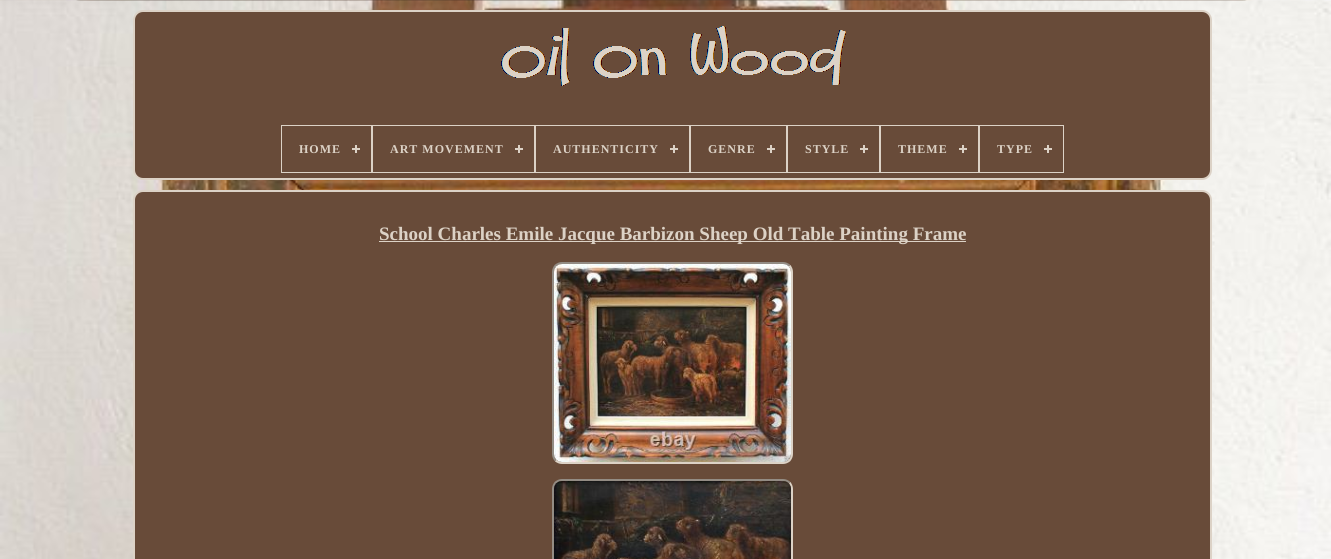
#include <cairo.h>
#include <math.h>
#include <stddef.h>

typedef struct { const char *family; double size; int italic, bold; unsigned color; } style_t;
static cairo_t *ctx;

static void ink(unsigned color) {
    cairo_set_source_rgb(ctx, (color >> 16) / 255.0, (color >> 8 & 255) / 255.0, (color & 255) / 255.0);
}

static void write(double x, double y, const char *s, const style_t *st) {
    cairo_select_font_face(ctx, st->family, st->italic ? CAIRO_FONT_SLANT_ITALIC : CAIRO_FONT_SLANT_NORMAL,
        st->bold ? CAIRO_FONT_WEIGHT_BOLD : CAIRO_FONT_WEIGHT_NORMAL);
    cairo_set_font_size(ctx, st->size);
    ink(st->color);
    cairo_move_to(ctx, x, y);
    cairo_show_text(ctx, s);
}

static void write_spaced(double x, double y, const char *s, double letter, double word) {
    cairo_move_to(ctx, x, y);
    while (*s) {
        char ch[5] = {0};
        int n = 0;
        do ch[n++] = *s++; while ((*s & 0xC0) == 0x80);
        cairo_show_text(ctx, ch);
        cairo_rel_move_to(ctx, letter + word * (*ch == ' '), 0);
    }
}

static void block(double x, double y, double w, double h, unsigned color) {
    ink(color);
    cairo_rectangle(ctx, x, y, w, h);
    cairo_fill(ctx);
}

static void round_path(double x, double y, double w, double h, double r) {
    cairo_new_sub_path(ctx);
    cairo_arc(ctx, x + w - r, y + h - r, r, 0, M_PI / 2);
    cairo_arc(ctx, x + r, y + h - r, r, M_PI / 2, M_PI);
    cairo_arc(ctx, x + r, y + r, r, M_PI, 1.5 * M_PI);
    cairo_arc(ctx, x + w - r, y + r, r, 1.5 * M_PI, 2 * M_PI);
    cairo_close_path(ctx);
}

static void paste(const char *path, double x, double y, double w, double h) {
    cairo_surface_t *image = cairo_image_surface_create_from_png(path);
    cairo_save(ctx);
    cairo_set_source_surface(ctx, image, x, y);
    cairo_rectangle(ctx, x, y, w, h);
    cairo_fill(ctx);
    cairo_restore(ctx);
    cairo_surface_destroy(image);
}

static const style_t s1 = {"Liberation Serif", 19, 0, 1, 0xdcd2c6};

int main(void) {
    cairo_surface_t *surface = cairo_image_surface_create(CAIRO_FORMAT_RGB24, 1331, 559);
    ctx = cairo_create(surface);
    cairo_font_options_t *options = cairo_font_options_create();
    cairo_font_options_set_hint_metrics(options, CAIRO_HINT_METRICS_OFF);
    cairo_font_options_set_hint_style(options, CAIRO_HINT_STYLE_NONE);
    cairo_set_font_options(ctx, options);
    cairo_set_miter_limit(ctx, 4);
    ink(0xffffff);
    cairo_paint(ctx);
    paste("pic1.png", 0, 0, 1331, 559);
    ink(0x684b39);
    round_path(134, 11, 1077, 168, 9);
    cairo_fill_preserve(ctx);
    ink(0xdcd2c6);
    cairo_stroke(ctx);
    paste("pic2.png", 501, 26, 345, 60);
    cairo_rectangle(ctx, 281.5, 125.5, 90, 47);
    cairo_set_line_width(ctx, 1);
    cairo_stroke(ctx);
    cairo_select_font_face(ctx, "Liberation Serif", CAIRO_FONT_SLANT_NORMAL, CAIRO_FONT_WEIGHT_BOLD);
    cairo_set_font_size(ctx, 12);
    write_spaced(299, 153, "HOME", 1, 0);
    block(355, 145, 2, 8, 0xdcd2c6);
    block(352, 148, 8, 2, 0xdcd2c6);
    cairo_rectangle(ctx, 372.5, 125.5, 162, 47);
    cairo_stroke(ctx);
    write_spaced(390, 153, "ART MOVEMENT", 1, 0);
    block(518, 145, 2, 8, 0xdcd2c6);
    block(515, 148, 8, 2, 0xdcd2c6);
    cairo_rectangle(ctx, 535.5, 125.5, 154, 47);
    cairo_stroke(ctx);
    write_spaced(553, 153, "AUTHENTICITY", 1, 0);
    block(673, 145, 2, 8, 0xdcd2c6);
    block(670, 148, 8, 2, 0xdcd2c6);
    cairo_rectangle(ctx, 690.5, 125.5, 96, 47);
    cairo_stroke(ctx);
    write_spaced(708, 153, "GENRE", 1, 0);
    block(770, 145, 2, 8, 0xdcd2c6);
    block(767, 148, 8, 2, 0xdcd2c6);
    cairo_rectangle(ctx, 787.5, 125.5, 92, 47);
    cairo_stroke(ctx);
    write_spaced(805, 153, "STYLE", 1, 0);
    block(863, 145, 2, 8, 0xdcd2c6);
    block(860, 148, 8, 2, 0xdcd2c6);
    cairo_rectangle(ctx, 880.5, 125.5, 98, 47);
    cairo_stroke(ctx);
    write_spaced(898, 153, "THEME", 1, 0);
    block(962, 145, 2, 8, 0xdcd2c6);
    block(959, 148, 8, 2, 0xdcd2c6);
    cairo_rectangle(ctx, 979.5, 125.5, 84, 47);
    cairo_stroke(ctx);
    write_spaced(997, 153, "TYPE", 1, 0);
    block(1047, 145, 2, 8, 0xdcd2c6);
    block(1044, 148, 8, 2, 0xdcd2c6);
    ink(0x684b39);
    round_path(134, 191, 1077, 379, 9);
    cairo_fill_preserve(ctx);
    ink(0xdcd2c6);
    cairo_set_line_width(ctx, 2);
    cairo_stroke(ctx);
    block(379, 241, 587, 1, 0xdcd2c6);
    write(379, 240, "School Charles Emile Jacque Barbizon Sheep Old Table Painting Frame", &s1);
    cairo_new_path(ctx);
    cairo_move_to(ctx, 789.5, 265.5);
    cairo_curve_to(ctx, 791, 267.5, 792, 269.5, 792, 272);
    cairo_line_to(ctx, 792, 454);
    cairo_curve_to(ctx, 792, 456.5, 791, 458.5, 789.5, 460.5);
    cairo_curve_to(ctx, 787.5, 462, 785.5, 463, 783, 463);
    cairo_line_to(ctx, 562, 463);
    cairo_curve_to(ctx, 559.5, 463, 557.5, 462, 555.5, 460.5);
    cairo_stroke(ctx);
    cairo_new_path(ctx);
    cairo_move_to(ctx, 555.5, 460.5);
    cairo_curve_to(ctx, 554, 458.5, 553, 456.5, 553, 454);
    cairo_line_to(ctx, 553, 272);
    cairo_curve_to(ctx, 553, 269.5, 554, 267.5, 555.5, 265.5);
    cairo_curve_to(ctx, 557.5, 264, 559.5, 263, 562, 263);
    cairo_line_to(ctx, 783, 263);
    cairo_curve_to(ctx, 785.5, 263, 787.5, 264, 789.5, 265.5);
    ink(0x938c84);
    cairo_stroke(ctx);
    paste("pic3.png", 554, 264, 237, 198);
    cairo_new_path(ctx);
    cairo_move_to(ctx, 789.5, 482.5);
    cairo_curve_to(ctx, 791, 484.5, 792, 486.5, 792, 489);
    cairo_line_to(ctx, 792, 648);
    cairo_curve_to(ctx, 792, 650.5, 791, 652.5, 789.5, 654.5);
    cairo_curve_to(ctx, 787.5, 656, 785.5, 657, 783, 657);
    cairo_line_to(ctx, 562, 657);
    cairo_curve_to(ctx, 559.5, 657, 557.5, 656, 555.5, 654.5);
    ink(0xdcd2c6);
    cairo_stroke(ctx);
    cairo_new_path(ctx);
    cairo_move_to(ctx, 555.5, 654.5);
    cairo_curve_to(ctx, 554, 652.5, 553, 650.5, 553, 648);
    cairo_line_to(ctx, 553, 489);
    cairo_curve_to(ctx, 553, 486.5, 554, 484.5, 555.5, 482.5);
    cairo_curve_to(ctx, 557.5, 481, 559.5, 480, 562, 480);
    cairo_line_to(ctx, 783, 480);
    cairo_curve_to(ctx, 785.5, 480, 787.5, 481, 789.5, 482.5);
    ink(0x938c84);
    cairo_stroke(ctx);
    paste("pic4.png", 554, 481, 237, 78);
    cairo_surface_write_to_png(surface, "screenshot.png");
    cairo_font_options_destroy(options);
    cairo_destroy(ctx);
    cairo_surface_destroy(surface);
    return 0;
}
